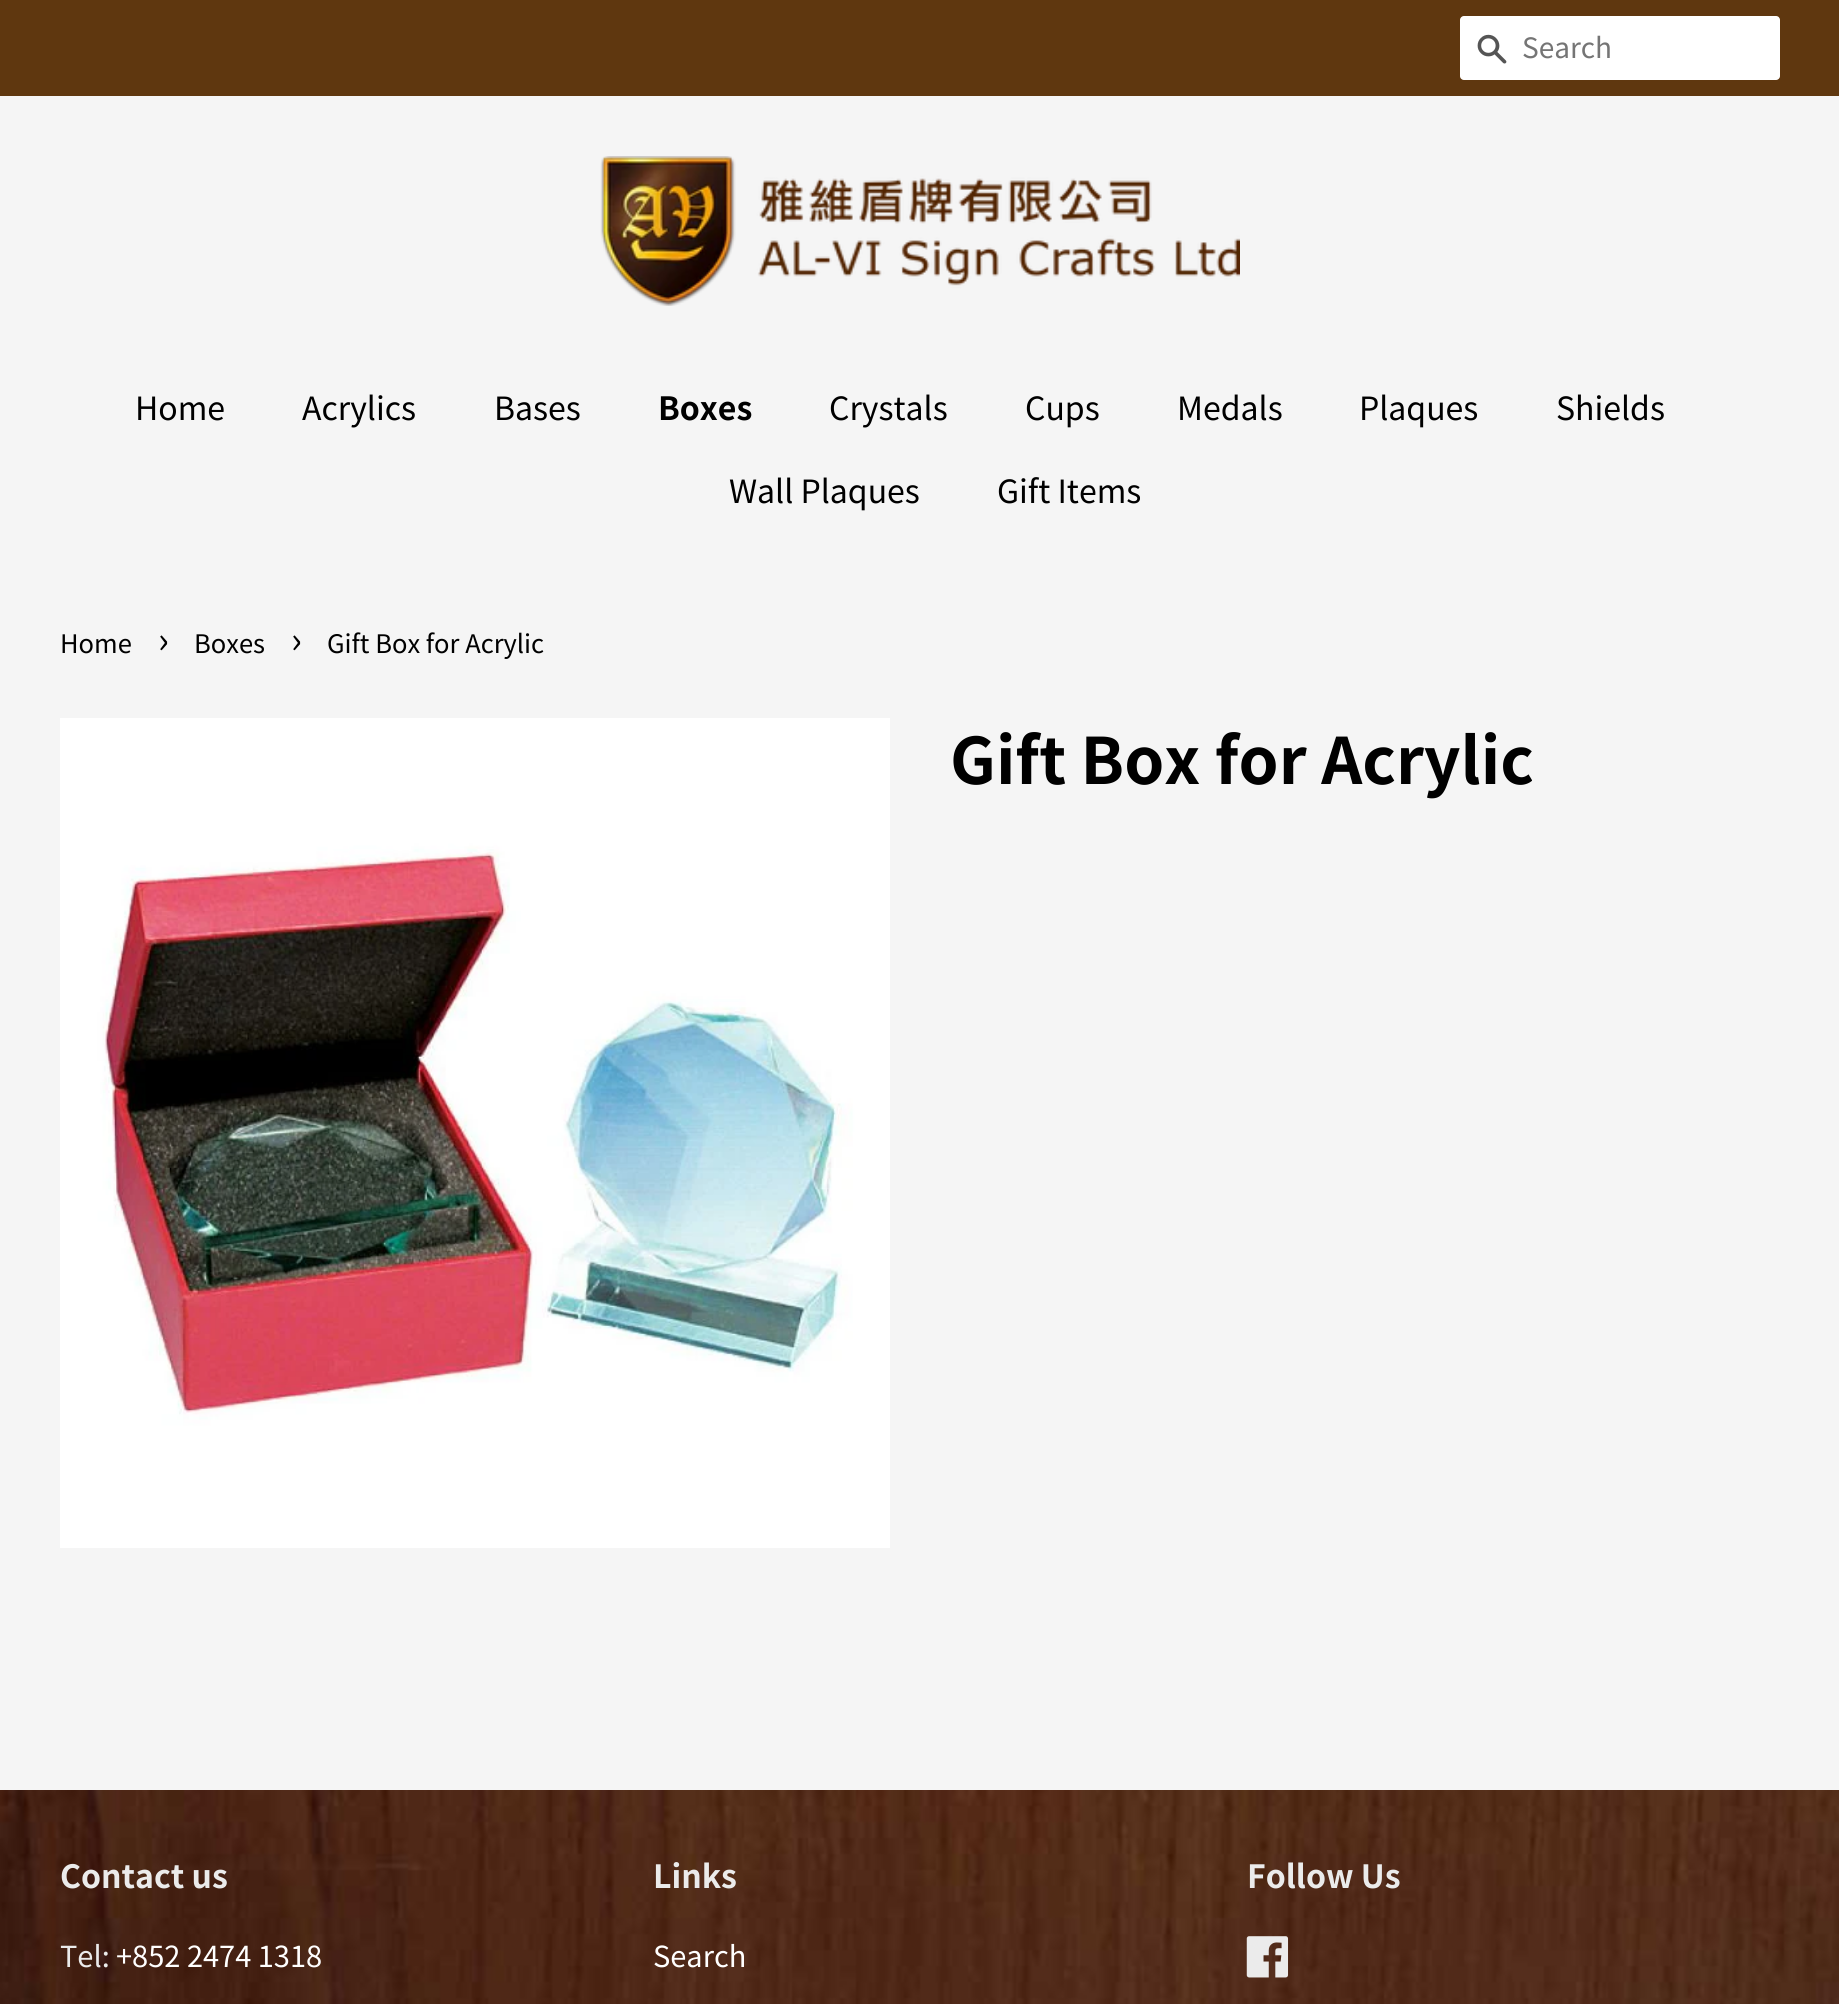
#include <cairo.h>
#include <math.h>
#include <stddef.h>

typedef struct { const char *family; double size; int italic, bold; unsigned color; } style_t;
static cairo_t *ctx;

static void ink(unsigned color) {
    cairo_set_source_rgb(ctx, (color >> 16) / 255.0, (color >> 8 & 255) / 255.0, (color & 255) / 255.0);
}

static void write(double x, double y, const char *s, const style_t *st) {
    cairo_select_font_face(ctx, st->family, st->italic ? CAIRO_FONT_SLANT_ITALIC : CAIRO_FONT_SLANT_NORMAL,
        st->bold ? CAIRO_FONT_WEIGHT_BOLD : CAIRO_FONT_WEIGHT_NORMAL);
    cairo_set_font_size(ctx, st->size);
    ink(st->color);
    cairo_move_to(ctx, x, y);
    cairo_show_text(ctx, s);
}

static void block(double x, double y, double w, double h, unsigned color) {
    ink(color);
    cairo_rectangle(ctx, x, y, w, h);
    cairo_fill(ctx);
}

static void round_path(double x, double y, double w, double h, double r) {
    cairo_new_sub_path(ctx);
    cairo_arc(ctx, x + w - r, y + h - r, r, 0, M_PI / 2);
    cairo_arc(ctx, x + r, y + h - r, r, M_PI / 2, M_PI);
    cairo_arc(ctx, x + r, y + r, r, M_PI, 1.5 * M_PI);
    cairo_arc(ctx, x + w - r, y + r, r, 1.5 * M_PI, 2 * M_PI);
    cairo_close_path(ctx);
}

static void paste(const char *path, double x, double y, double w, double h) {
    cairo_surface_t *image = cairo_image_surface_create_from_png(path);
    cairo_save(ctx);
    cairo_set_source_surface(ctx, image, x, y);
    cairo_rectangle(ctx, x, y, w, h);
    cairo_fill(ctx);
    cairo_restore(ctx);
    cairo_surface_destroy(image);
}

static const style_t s1 = {"Noto Sans HK", 28, 0, 0, 0x757575};
static const style_t s2 = {"Noto Sans HK", 32, 0, 0, 0x000000};
static const style_t s3 = {"Noto Sans HK", 32, 0, 1, 0x000000};
static const style_t s4 = {"Noto Sans HK", 25.5, 0, 0, 0x000000};
static const style_t s5 = {"Noto Sans HK", 36, 0, 0, 0x000000};
static const style_t s6 = {"Noto Sans HK", 64, 0, 1, 0x000000};
static const style_t s7 = {"Noto Sans HK", 32, 0, 1, 0xebebeb};
static const style_t s8 = {"Noto Sans HK", 29, 0, 0, 0xebebeb};
static const style_t s9 = {"Noto Sans HK", 29, 0, 0, 0xffffff};

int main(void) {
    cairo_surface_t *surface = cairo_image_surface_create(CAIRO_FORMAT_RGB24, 1839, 2004);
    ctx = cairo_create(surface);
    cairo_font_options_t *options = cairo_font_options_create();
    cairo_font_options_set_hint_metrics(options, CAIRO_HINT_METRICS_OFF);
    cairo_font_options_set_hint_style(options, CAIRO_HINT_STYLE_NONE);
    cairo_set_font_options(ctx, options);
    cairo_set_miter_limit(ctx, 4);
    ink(0xf5f5f5);
    cairo_paint(ctx);
    block(0, 0, 1839, 96, 0x5f370f);
    ink(0xffffff);
    round_path(1460, 16, 320, 64, 4);
    cairo_fill(ctx);
    paste("pic1.png", 1477, 34, 30, 30);
    write(1522, 58, "Search", &s1);
    paste("pic2.png", 600, 156, 640, 150);
    write(135, 420, "Home", &s2);
    write(302, 420, "Acrylics", &s2);
    write(494, 420, "Bases", &s2);
    write(658, 420, "Boxes", &s3);
    write(829, 420, "Crystals", &s2);
    write(1025, 420, "Cups", &s2);
    write(1177, 420, "Medals", &s2);
    write(1359, 420, "Plaques", &s2);
    write(1556, 420, "Shields", &s2);
    write(729, 503, "Wall Plaques", &s2);
    write(997, 503, "Gift Items", &s2);
    write(60, 653, "Home", &s4);
    write(158, 653, "›", &s5);
    write(194, 653, "Boxes", &s4);
    write(291, 653, "›", &s5);
    write(327, 653, "Gift Box for Acrylic", &s4);
    paste("pic3.png", 60, 718, 830, 830);
    write(950, 784, "Gift Box for Acrylic", &s6);
    paste("pic4.png", 0, 1790, 1839, 214);
    write(60, 1888, "Contact us", &s7);
    write(60, 1967, "Tel:", &s8);
    write(116, 1967, "+852 2474 1318", &s9);
    write(653, 1888, "Links", &s7);
    write(653, 1967, "Search", &s9);
    write(1247, 1888, "Follow Us", &s7);
    paste("pic5.png", 1246, 1936, 43, 42);
    cairo_surface_write_to_png(surface, "screenshot.png");
    cairo_font_options_destroy(options);
    cairo_destroy(ctx);
    cairo_surface_destroy(surface);
    return 0;
}
